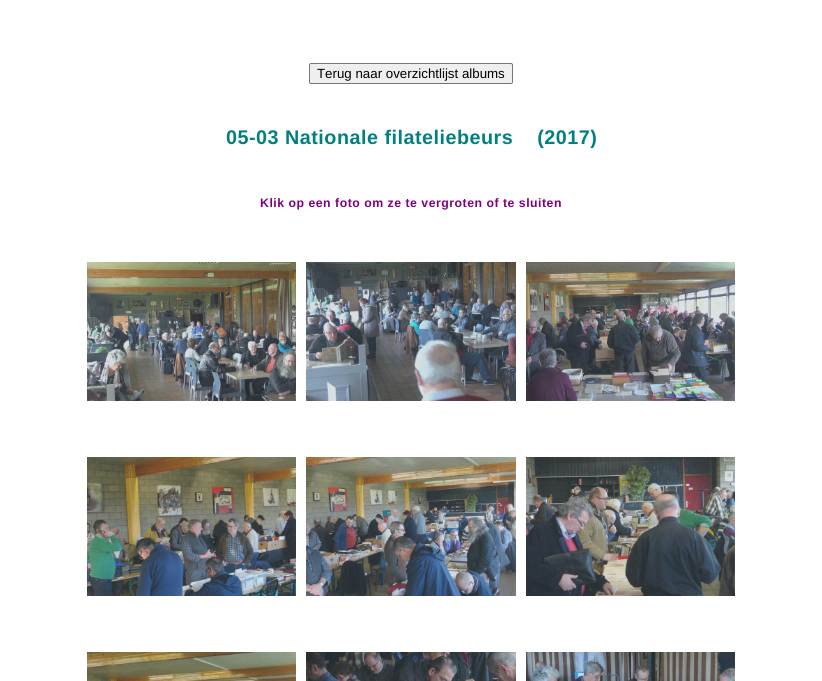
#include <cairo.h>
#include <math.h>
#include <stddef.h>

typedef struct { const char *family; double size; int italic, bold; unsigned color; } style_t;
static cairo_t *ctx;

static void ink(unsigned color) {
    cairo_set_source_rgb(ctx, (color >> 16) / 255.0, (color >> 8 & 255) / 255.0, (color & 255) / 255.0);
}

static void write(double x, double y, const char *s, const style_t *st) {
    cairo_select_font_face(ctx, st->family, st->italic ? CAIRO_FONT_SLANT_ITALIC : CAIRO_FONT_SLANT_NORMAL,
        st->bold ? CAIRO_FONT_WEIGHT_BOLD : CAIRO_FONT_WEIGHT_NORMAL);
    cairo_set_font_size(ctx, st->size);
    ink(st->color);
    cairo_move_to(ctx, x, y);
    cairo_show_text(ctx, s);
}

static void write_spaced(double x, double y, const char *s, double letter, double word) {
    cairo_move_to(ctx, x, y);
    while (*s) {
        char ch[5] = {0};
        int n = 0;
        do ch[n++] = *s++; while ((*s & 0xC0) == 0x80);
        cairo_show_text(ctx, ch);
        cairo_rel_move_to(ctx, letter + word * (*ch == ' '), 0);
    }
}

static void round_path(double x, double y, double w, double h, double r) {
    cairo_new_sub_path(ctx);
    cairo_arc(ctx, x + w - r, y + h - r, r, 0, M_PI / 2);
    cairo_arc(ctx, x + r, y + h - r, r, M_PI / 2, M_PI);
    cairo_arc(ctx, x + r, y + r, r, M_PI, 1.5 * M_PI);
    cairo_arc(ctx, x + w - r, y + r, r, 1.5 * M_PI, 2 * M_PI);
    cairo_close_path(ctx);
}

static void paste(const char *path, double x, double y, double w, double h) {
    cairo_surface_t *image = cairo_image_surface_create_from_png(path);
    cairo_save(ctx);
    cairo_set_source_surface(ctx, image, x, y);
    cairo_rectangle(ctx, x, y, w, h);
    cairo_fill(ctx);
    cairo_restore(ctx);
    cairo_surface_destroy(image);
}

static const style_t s1 = {"Liberation Sans", 13.3, 0, 0, 0x000000};

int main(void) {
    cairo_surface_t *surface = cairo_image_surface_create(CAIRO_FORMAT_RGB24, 822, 681);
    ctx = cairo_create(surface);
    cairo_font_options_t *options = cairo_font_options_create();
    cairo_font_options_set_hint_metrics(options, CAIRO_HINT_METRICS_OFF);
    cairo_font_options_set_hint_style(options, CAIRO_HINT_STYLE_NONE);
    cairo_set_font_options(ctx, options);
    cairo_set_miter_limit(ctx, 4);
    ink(0xffffff);
    cairo_paint(ctx);
    ink(0xefefef);
    round_path(309.5, 63.5, 203, 20, 1.5);
    cairo_fill_preserve(ctx);
    ink(0x767676);
    cairo_set_line_width(ctx, 1);
    cairo_stroke(ctx);
    write(317, 78, "Terug naar overzichtlijst albums", &s1);
    cairo_select_font_face(ctx, "Liberation Sans", CAIRO_FONT_SLANT_NORMAL, CAIRO_FONT_WEIGHT_BOLD);
    cairo_set_font_size(ctx, 19.75);
    ink(0x008080);
    write_spaced(226, 144, "05-03 Nationale filateliebeurs    (2017)", 0.5, 0);
    cairo_set_font_size(ctx, 12.3);
    ink(0x800080);
    write_spaced(260, 207, "Klik op een foto om ze te vergroten of te sluiten", 0.5, 0);
    paste("pic1.png", 87, 262, 209, 139);
    paste("pic2.png", 87, 262, 209, 139);
    paste("pic3.png", 306, 262, 210, 139);
    paste("pic4.png", 306, 262, 210, 139);
    paste("pic5.png", 526, 262, 209, 139);
    paste("pic6.png", 526, 262, 209, 139);
    paste("pic7.png", 87, 457, 209, 139);
    paste("pic8.png", 87, 457, 209, 139);
    paste("pic9.png", 306, 457, 210, 139);
    paste("pic10.png", 306, 457, 210, 139);
    paste("pic11.png", 526, 457, 209, 139);
    paste("pic12.png", 526, 457, 209, 139);
    paste("pic13.png", 87, 652, 209, 29);
    paste("pic14.png", 87, 652, 209, 29);
    paste("pic15.png", 306, 652, 210, 29);
    paste("pic16.png", 306, 652, 210, 29);
    paste("pic17.png", 526, 652, 209, 29);
    paste("pic18.png", 526, 652, 209, 29);
    cairo_surface_write_to_png(surface, "screenshot.png");
    cairo_font_options_destroy(options);
    cairo_destroy(ctx);
    cairo_surface_destroy(surface);
    return 0;
}
